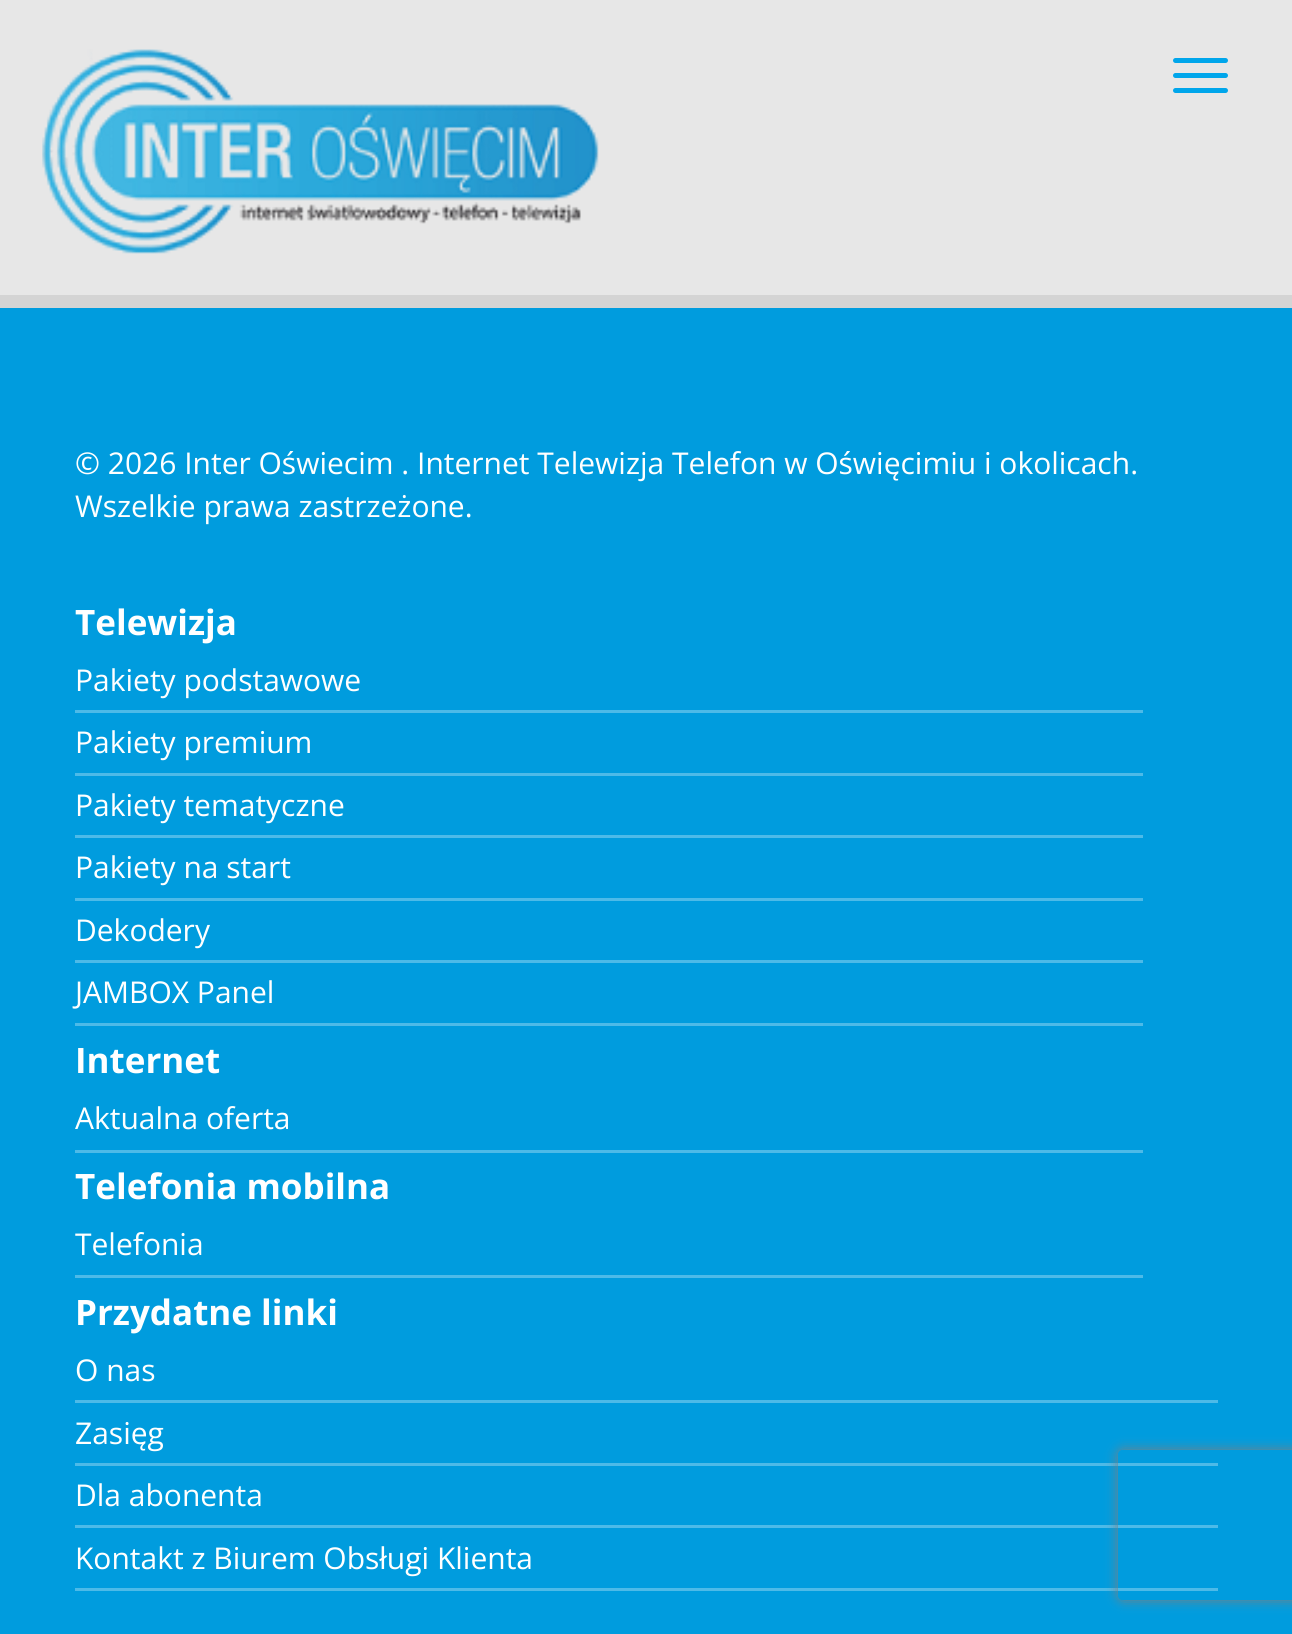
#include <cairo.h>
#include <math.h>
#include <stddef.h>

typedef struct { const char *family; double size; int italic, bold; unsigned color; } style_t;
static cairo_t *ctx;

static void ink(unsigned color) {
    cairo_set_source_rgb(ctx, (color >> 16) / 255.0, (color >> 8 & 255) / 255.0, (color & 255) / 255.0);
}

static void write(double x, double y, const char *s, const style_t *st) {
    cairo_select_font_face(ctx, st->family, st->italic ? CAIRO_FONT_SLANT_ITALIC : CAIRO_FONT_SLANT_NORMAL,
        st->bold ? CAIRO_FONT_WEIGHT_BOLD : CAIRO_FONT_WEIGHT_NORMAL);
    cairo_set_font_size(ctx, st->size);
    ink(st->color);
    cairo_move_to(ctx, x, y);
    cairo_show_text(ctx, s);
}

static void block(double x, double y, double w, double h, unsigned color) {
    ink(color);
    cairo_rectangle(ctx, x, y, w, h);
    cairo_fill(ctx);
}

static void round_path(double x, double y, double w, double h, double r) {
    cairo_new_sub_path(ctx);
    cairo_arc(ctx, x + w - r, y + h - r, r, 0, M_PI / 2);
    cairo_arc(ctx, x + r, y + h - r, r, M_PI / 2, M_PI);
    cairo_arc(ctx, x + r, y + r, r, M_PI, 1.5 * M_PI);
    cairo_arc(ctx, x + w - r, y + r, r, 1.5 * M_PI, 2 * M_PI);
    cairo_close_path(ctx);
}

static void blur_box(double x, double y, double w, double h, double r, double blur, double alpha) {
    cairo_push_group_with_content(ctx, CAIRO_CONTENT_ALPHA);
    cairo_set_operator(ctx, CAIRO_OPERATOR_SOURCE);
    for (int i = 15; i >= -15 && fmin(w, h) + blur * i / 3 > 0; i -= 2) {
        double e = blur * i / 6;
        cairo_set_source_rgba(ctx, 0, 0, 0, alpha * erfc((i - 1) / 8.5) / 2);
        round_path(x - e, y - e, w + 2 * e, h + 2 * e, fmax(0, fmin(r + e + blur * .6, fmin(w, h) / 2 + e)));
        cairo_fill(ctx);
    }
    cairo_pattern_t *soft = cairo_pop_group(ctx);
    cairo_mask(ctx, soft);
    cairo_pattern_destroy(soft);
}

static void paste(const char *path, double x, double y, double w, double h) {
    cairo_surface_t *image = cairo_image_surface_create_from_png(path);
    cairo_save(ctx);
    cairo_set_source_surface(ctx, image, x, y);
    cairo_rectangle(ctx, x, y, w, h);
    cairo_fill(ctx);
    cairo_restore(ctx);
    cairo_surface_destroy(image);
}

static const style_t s1 = {"Open Sans", 30, 0, 0, 0xffffff};
static const style_t s2 = {"Open Sans", 35, 0, 1, 0xffffff};

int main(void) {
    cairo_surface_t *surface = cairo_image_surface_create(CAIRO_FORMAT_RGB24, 1292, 1634);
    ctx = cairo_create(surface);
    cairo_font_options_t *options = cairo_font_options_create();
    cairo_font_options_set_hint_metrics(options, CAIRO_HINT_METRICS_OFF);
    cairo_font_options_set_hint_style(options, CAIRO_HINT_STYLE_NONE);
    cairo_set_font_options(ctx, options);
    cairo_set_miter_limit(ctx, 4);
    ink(0x009cde);
    cairo_paint(ctx);
    block(0, 0, 1292, 295, 0xe7e7e7);
    block(0, 295, 1292, 13, 0xd4d4d4);
    paste("pic1.png", 42, 49, 557, 205);
    ink(0x00a6eb);
    round_path(1173, 58, 55, 5, 2.5);
    cairo_fill(ctx);
    round_path(1173, 73, 55, 5, 2.5);
    cairo_fill(ctx);
    round_path(1173, 88, 55, 5, 2.5);
    cairo_fill(ctx);
    write(75, 474, "© 2026 Inter Oświecim . Internet Telewizja Telefon w Oświęcimiu i okolicach.", &s1);
    write(75, 517, "Wszelkie prawa zastrzeżone.", &s1);
    write(75, 635, "Telewizja", &s2);
    block(75, 710, 1068, 3, 0x4dbae8);
    write(75, 691, "Pakiety podstawowe", &s1);
    block(75, 773, 1068, 3, 0x4dbae8);
    write(75, 753, "Pakiety premium", &s1);
    block(75, 835, 1068, 3, 0x4dbae8);
    write(75, 816, "Pakiety tematyczne", &s1);
    block(75, 898, 1068, 3, 0x4dbae8);
    write(75, 878, "Pakiety na start", &s1);
    block(75, 960, 1068, 3, 0x4dbae8);
    write(75, 941, "Dekodery", &s1);
    block(75, 1023, 1068, 3, 0x4dbae8);
    write(75, 1003, "JAMBOX Panel", &s1);
    write(75, 1073, "Internet", &s2);
    block(75, 1150, 1068, 3, 0x4dbae8);
    write(75, 1129, "Aktualna oferta", &s1);
    write(75, 1199, "Telefonia mobilna", &s2);
    block(75, 1275, 1068, 3, 0x4dbae8);
    write(75, 1255, "Telefonia", &s1);
    write(75, 1325, "Przydatne linki", &s2);
    block(75, 1400, 1143, 3, 0x4dbae8);
    write(75, 1381, "O nas", &s1);
    block(75, 1463, 1143, 3, 0x4dbae8);
    write(75, 1444, "Zasięg", &s1);
    block(75, 1525, 1143, 3, 0x4dbae8);
    write(75, 1506, "Dla abonenta", &s1);
    block(75, 1588, 1143, 3, 0x4dbae8);
    write(75, 1569, "Kontakt z Biurem Obsługi Klienta", &s1);
    cairo_save(ctx);
    cairo_set_fill_rule(ctx, CAIRO_FILL_RULE_EVEN_ODD);
    cairo_new_path(ctx);
    cairo_move_to(ctx, 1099, 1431);
    cairo_line_to(ctx, 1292, 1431);
    cairo_line_to(ctx, 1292, 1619);
    cairo_line_to(ctx, 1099, 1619);
    cairo_close_path(ctx);
    cairo_move_to(ctx, 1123, 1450);
    cairo_line_to(ctx, 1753, 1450);
    cairo_curve_to(ctx, 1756, 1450, 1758, 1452, 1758, 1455);
    cairo_line_to(ctx, 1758, 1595);
    cairo_curve_to(ctx, 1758, 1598, 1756, 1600, 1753, 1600);
    cairo_line_to(ctx, 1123, 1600);
    cairo_curve_to(ctx, 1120, 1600, 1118, 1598, 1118, 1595);
    cairo_line_to(ctx, 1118, 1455);
    cairo_curve_to(ctx, 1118, 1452, 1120, 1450, 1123, 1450);
    cairo_close_path(ctx);
    cairo_clip(ctx);
    ink(0x808080);
    blur_box(1118, 1450, 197, 150, 5, 6, 1);
    cairo_restore(ctx);
    cairo_surface_write_to_png(surface, "screenshot.png");
    cairo_font_options_destroy(options);
    cairo_destroy(ctx);
    cairo_surface_destroy(surface);
    return 0;
}
